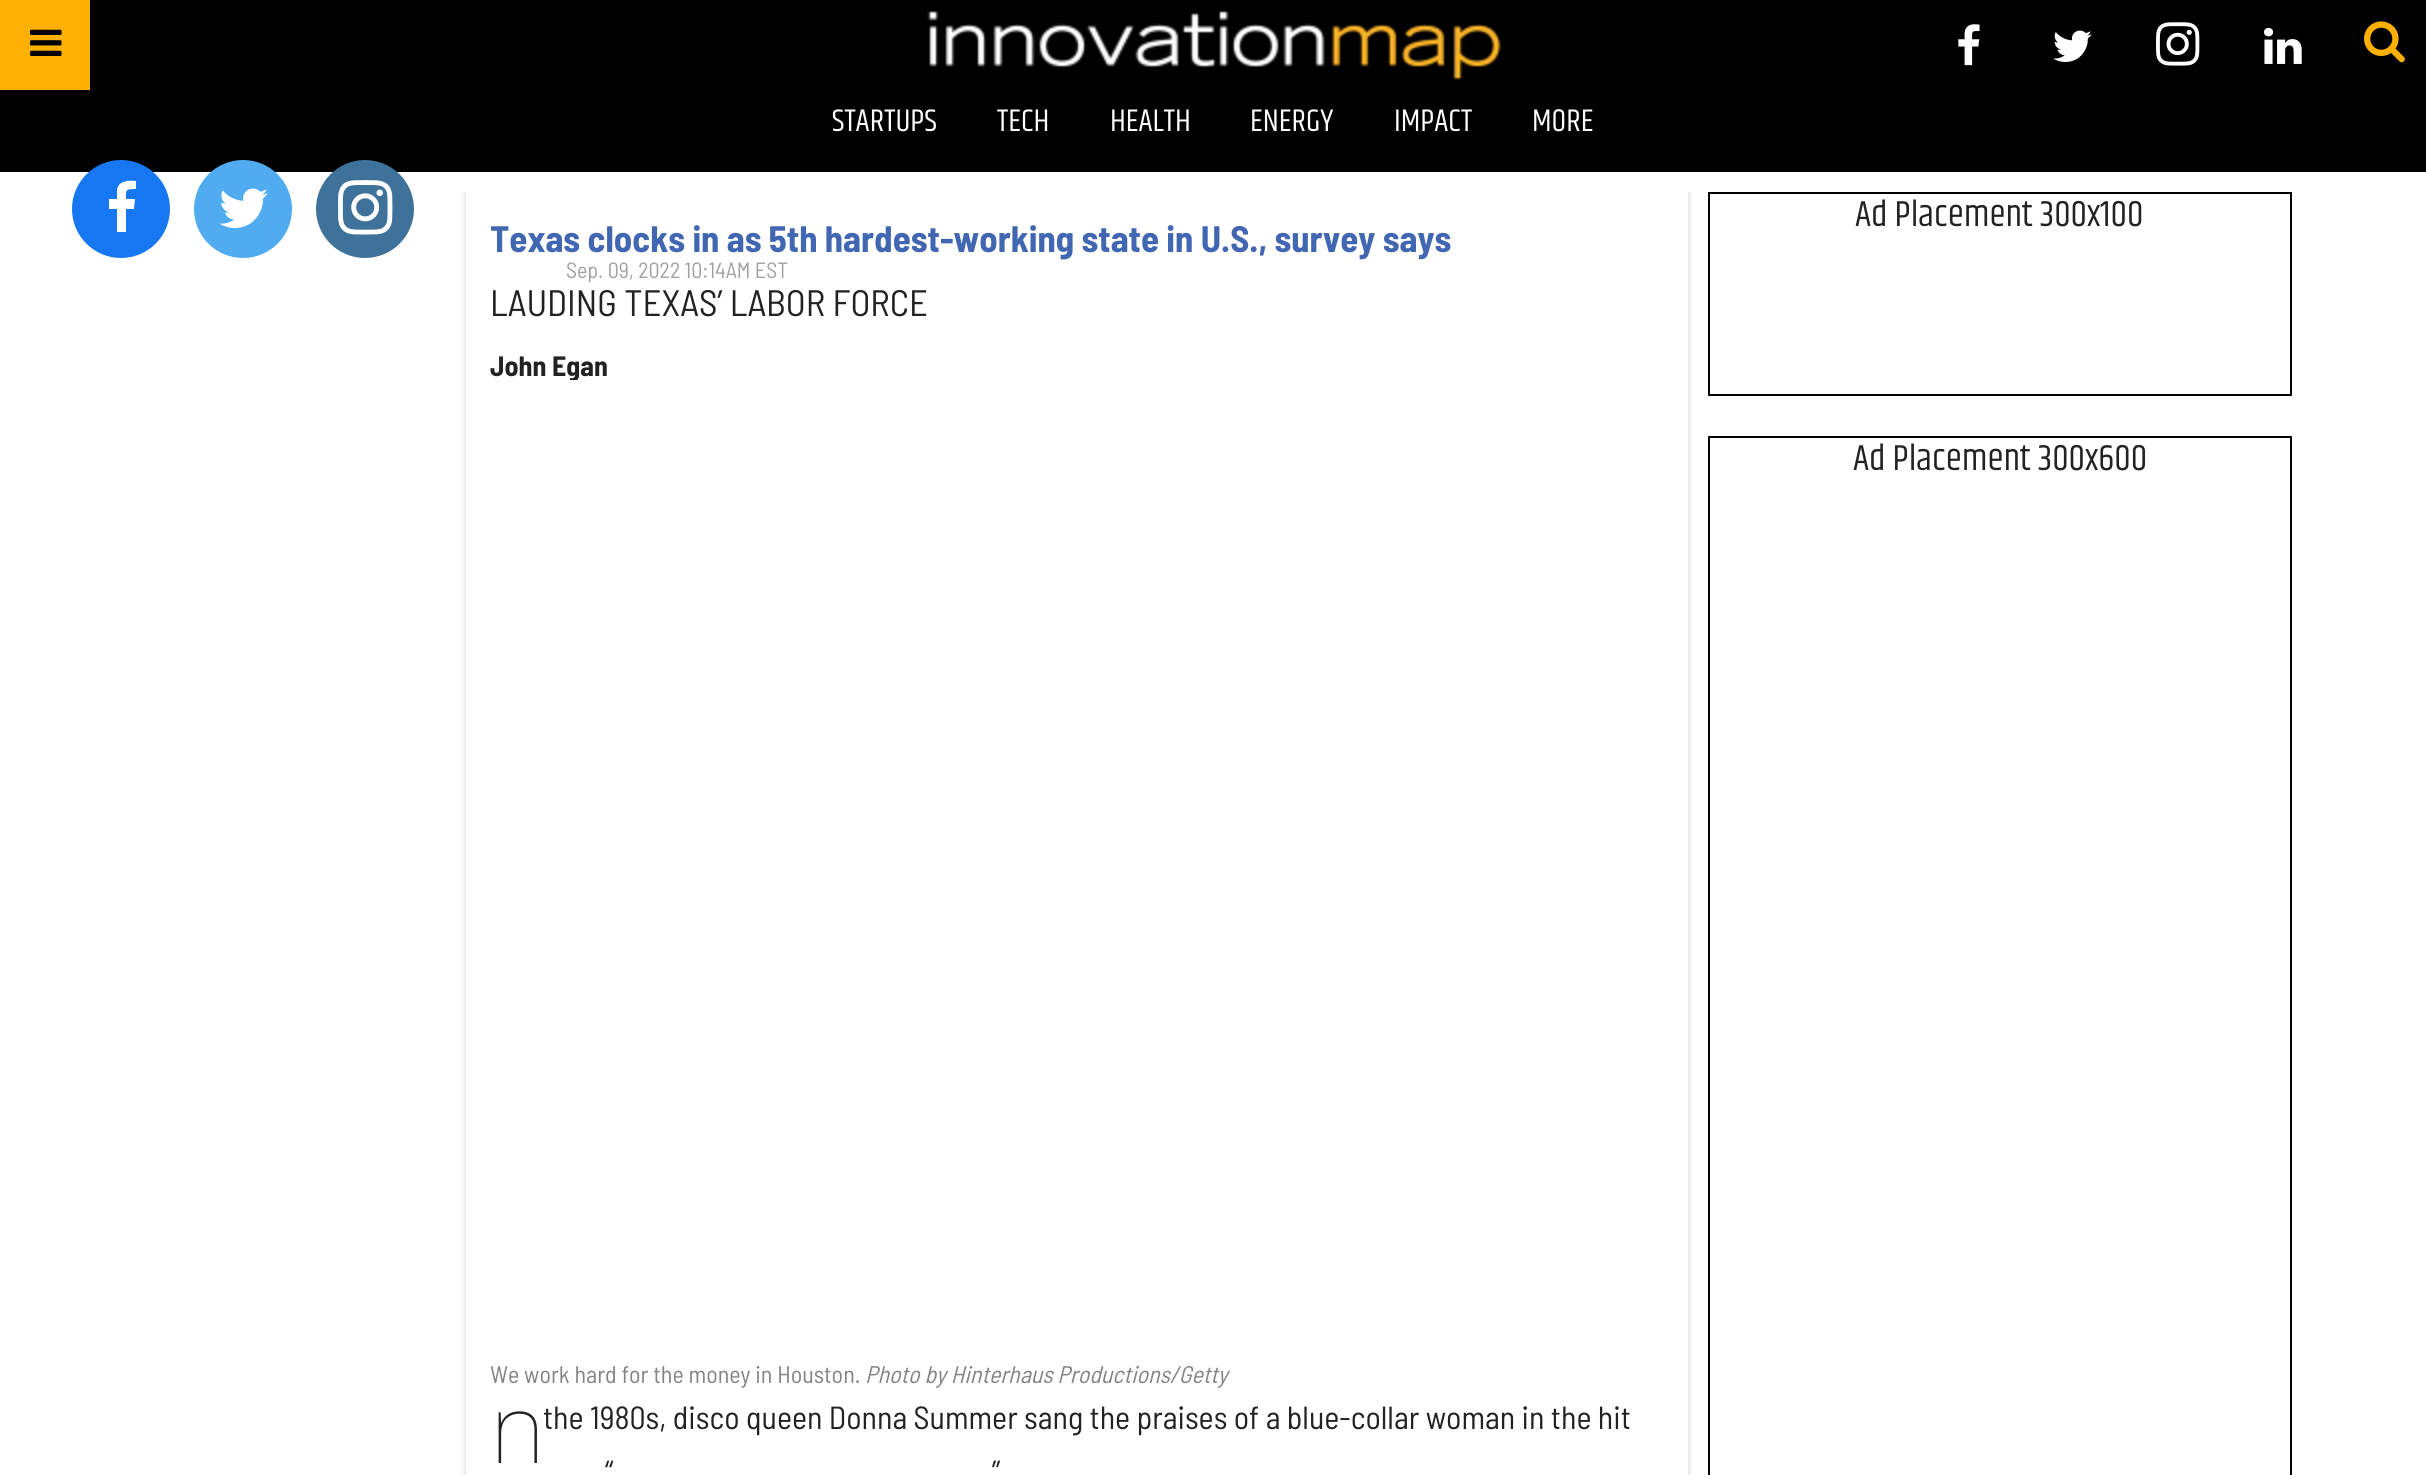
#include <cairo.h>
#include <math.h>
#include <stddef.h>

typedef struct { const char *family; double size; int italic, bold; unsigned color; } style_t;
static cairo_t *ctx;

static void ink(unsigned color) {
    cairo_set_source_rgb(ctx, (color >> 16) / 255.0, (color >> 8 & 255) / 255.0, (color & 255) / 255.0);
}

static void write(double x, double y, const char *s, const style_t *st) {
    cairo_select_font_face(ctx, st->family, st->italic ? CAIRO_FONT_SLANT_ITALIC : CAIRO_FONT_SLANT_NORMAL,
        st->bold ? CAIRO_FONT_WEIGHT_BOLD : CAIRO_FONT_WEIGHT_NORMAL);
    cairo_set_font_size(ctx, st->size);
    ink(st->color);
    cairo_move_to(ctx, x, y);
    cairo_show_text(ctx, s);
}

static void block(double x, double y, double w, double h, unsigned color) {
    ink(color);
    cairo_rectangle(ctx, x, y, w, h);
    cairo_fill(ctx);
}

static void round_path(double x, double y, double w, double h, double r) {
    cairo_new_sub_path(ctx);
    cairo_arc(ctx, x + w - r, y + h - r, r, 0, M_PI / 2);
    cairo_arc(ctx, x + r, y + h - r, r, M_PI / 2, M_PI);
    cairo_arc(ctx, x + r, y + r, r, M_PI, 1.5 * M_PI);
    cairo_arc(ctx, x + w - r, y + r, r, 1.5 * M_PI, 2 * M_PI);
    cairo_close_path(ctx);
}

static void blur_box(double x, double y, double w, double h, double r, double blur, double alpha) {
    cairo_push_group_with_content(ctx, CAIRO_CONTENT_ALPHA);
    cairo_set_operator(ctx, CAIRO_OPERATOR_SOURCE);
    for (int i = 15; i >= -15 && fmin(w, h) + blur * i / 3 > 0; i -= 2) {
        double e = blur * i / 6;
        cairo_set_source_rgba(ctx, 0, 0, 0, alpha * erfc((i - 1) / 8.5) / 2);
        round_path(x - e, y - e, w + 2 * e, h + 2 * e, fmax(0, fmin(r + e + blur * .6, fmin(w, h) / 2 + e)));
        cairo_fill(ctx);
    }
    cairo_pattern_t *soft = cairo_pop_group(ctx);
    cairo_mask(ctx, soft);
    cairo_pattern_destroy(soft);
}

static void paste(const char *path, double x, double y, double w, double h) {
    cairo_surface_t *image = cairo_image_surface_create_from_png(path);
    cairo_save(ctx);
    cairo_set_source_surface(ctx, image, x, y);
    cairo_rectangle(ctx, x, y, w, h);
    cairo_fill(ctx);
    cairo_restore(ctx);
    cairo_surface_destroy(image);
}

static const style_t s1 = {"Khand", 32, 0, 0, 0xffffff};
static const style_t s2 = {"Barlow Semi Condensed", 36.8, 0, 1, 0x4267b2};
static const style_t s3 = {"Barlow Semi Condensed", 22, 0, 0, 0xa4a2a0};
static const style_t s4 = {"Barlow Semi Condensed", 36.8, 0, 0, 0x222222};
static const style_t s5 = {"Barlow Semi Condensed", 28, 0, 1, 0x222222};
static const style_t s6 = {"Barlow Semi Condensed", 24, 0, 0, 0x848484};
static const style_t s7 = {"Barlow Semi Condensed", 24, 1, 0, 0x848484};
static const style_t s8 = {"Noto Sans Thin", 96, 0, 0, 0x222222};
static const style_t s9 = {"Barlow Semi Condensed", 32, 0, 0, 0x222222};
static const style_t s10 = {"Khand", 36.8, 0, 0, 0x222222};

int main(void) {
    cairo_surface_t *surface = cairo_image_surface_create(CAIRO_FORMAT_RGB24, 2426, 1475);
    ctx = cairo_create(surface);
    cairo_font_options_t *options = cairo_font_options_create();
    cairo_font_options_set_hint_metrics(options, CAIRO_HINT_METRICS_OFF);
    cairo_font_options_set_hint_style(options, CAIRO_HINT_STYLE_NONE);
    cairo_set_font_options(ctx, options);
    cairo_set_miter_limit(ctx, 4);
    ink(0xffffff);
    cairo_paint(ctx);
    block(0, 0, 2426, 172, 0x000000);
    block(0, 0, 90, 90, 0xffb000);
    paste("pic1.png", 30, 29, 32, 27);
    paste("pic2.png", 1958, 24, 22, 42);
    paste("pic3.png", 2053, 30, 39, 32);
    paste("pic4.png", 2156, 22, 44, 44);
    paste("pic5.png", 2264, 27, 38, 37);
    paste("pic6.png", 2364, 21, 41, 42);
    paste("pic7.png", 927, 10, 574, 71);
    write(832, 131, "STARTUPS", &s1);
    write(997, 131, "TECH", &s1);
    write(1110, 131, "HEALTH", &s1);
    write(1250, 131, "ENERGY", &s1);
    write(1394, 131, "IMPACT", &s1);
    write(1532, 131, "MORE", &s1);
    ink(0x1777f2);
    cairo_new_path(ctx);
    cairo_arc(ctx, 121, 209, 49, 0, 2 * M_PI);
    cairo_fill(ctx);
    ink(0xffffff);
    cairo_new_path(ctx);
    cairo_move_to(ctx, 136, 181);
    cairo_line_to(ctx, 136, 189);
    cairo_curve_to(ctx, 125, 189, 126, 190, 126, 199);
    cairo_line_to(ctx, 135, 199);
    cairo_line_to(ctx, 134, 209);
    cairo_line_to(ctx, 126, 209);
    cairo_line_to(ctx, 126, 232);
    cairo_line_to(ctx, 117, 232);
    cairo_line_to(ctx, 117, 209);
    cairo_line_to(ctx, 109, 209);
    cairo_line_to(ctx, 109, 199);
    cairo_line_to(ctx, 117, 199);
    cairo_line_to(ctx, 117, 190);
    cairo_curve_to(ctx, 118, 181, 128, 180, 136, 181);
    cairo_close_path(ctx);
    cairo_fill(ctx);
    ink(0x50abf1);
    cairo_arc(ctx, 243, 209, 49, 0, 2 * M_PI);
    cairo_fill(ctx);
    paste("pic8.png", 219, 188, 49, 40);
    ink(0x3f729b);
    cairo_arc(ctx, 365, 209, 49, 0, 2 * M_PI);
    cairo_fill(ctx);
    paste("pic9.png", 338, 180, 55, 55);
    cairo_save(ctx);
    cairo_rectangle(ctx, 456, 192, 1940, 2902);
    cairo_clip(ctx);
    cairo_set_fill_rule(ctx, CAIRO_FILL_RULE_EVEN_ODD);
    cairo_new_path(ctx);
    cairo_move_to(ctx, 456, 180);
    cairo_line_to(ctx, 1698, 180);
    cairo_line_to(ctx, 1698, 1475);
    cairo_line_to(ctx, 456, 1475);
    cairo_close_path(ctx);
    cairo_move_to(ctx, 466, 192);
    cairo_line_to(ctx, 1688, 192);
    cairo_line_to(ctx, 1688, 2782);
    cairo_line_to(ctx, 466, 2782);
    cairo_close_path(ctx);
    cairo_clip(ctx);
    ink(0xcccccc);
    blur_box(466, 190, 1222, 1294, 0, 3, 1);
    cairo_restore(ctx);
    write(490, 252, "Texas clocks in as 5th hardest-working state in U.S., survey says", &s2);
    write(566, 278, "Sep. 09, 2022 10:14AM EST", &s3);
    write(490, 316, "LAUDING TEXAS’ LABOR FORCE", &s4);
    cairo_save(ctx);
    cairo_rectangle(ctx, 490, 352, 118, 28);
    cairo_clip(ctx);
    write(490, 376, "John Egan", &s5);
    cairo_restore(ctx);
    write(490, 1383, "We work hard for the money in Houston.", &s6);
    write(865, 1383, "Photo by Hinterhaus Productions/Getty", &s7);
    write(490, 1463, "n", &s8);
    write(543, 1429, "the 1980s, disco queen Donna Summer sang the praises of a blue-collar woman in the hit", &s9);
    write(605, 1483, "“", &s9);
    write(992, 1483, "”", &s9);
    cairo_rectangle(ctx, 1709, 193, 582, 202);
    ink(0x000000);
    cairo_stroke(ctx);
    write(1855, 226, "Ad Placement 300x100", &s10);
    cairo_rectangle(ctx, 1709, 437, 582, 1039);
    ink(0x000000);
    cairo_stroke(ctx);
    write(1853, 470, "Ad Placement 300x600", &s10);
    cairo_surface_write_to_png(surface, "screenshot.png");
    cairo_font_options_destroy(options);
    cairo_destroy(ctx);
    cairo_surface_destroy(surface);
    return 0;
}
